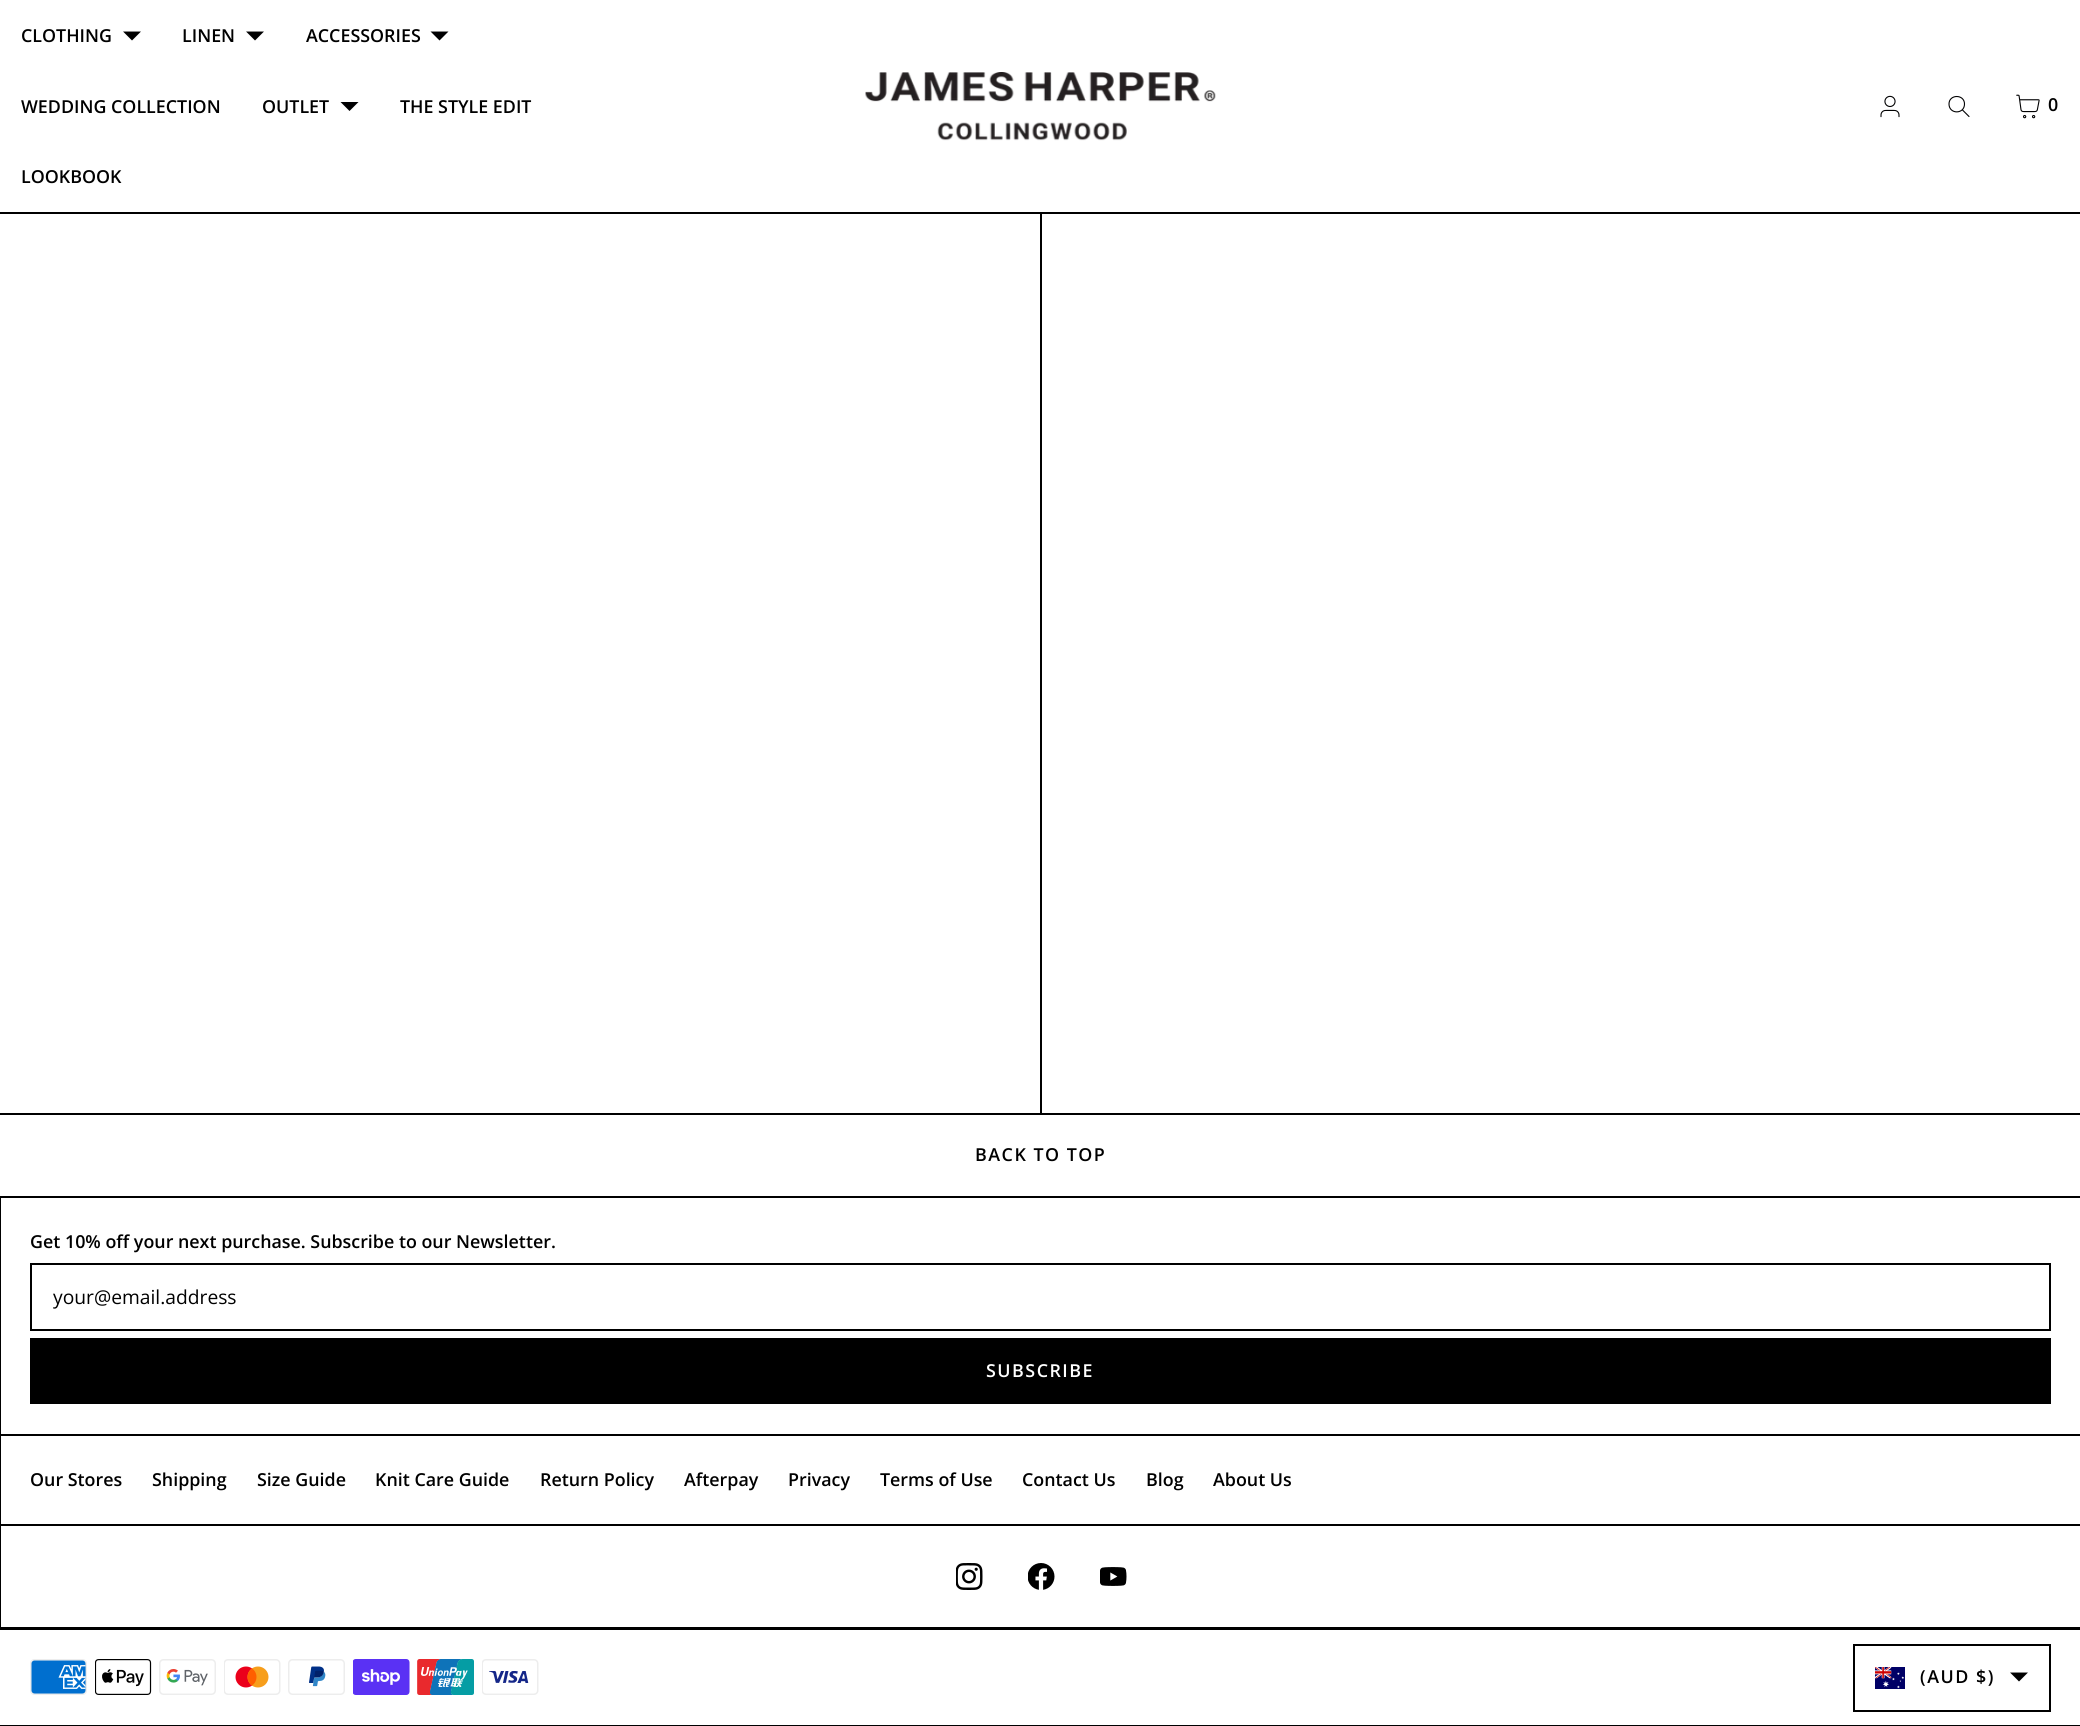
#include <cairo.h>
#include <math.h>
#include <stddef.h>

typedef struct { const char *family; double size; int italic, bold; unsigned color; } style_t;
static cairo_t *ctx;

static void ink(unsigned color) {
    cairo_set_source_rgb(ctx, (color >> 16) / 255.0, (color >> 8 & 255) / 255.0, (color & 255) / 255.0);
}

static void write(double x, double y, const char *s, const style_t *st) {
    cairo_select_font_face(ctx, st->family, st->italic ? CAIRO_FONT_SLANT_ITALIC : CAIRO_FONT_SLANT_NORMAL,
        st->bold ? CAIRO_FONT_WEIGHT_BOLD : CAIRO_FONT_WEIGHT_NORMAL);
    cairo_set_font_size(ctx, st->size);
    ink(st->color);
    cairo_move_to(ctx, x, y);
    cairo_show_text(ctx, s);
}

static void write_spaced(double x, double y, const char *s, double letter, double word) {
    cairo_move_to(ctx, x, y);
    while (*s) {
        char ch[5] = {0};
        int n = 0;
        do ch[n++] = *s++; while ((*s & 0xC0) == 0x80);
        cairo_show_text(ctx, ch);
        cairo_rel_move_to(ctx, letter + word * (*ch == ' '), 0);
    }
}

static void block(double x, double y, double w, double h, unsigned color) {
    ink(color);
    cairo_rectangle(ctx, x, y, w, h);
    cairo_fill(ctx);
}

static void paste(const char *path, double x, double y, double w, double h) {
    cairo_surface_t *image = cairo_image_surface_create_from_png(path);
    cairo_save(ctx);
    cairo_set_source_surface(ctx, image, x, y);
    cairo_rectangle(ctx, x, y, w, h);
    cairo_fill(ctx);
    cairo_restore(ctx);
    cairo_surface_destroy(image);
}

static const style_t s1 = {"Open Sans SemiBold", 17.85, 0, 0, 0x000000};
static const style_t s2 = {"Open Sans", 19.25, 0, 0, 0x000000};

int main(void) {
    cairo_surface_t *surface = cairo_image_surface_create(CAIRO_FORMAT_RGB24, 2080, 1726);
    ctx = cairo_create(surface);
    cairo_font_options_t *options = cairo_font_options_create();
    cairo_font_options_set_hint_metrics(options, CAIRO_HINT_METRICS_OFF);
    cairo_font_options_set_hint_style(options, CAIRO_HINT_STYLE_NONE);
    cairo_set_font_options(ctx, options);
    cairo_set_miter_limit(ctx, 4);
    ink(0xffffff);
    cairo_paint(ctx);
    block(0, 212, 2080, 2, 0x000000);
    write(21, 42, "CLOTHING", &s1);
    cairo_new_path(ctx);
    cairo_move_to(ctx, 123, 31.5);
    cairo_line_to(ctx, 141, 31.5);
    cairo_line_to(ctx, 132, 40.5);
    cairo_close_path(ctx);
    cairo_fill(ctx);
    write(182, 42, "LINEN", &s1);
    ink(0x000001);
    cairo_new_path(ctx);
    cairo_move_to(ctx, 246, 31.5);
    cairo_line_to(ctx, 264, 31.5);
    cairo_line_to(ctx, 255, 40.5);
    cairo_close_path(ctx);
    cairo_fill(ctx);
    write(306, 42, "ACCESSORIES", &s1);
    ink(0x000001);
    cairo_new_path(ctx);
    cairo_move_to(ctx, 430.5, 31.5);
    cairo_line_to(ctx, 448.5, 31.5);
    cairo_line_to(ctx, 439.5, 40.5);
    cairo_close_path(ctx);
    cairo_fill(ctx);
    write(21, 113, "WEDDING COLLECTION", &s1);
    write(262, 113, "OUTLET", &s1);
    ink(0x000001);
    cairo_new_path(ctx);
    cairo_move_to(ctx, 340.5, 102);
    cairo_line_to(ctx, 358.5, 102);
    cairo_line_to(ctx, 349.5, 111);
    cairo_close_path(ctx);
    cairo_fill(ctx);
    write(400, 113, "THE STYLE EDIT", &s1);
    write(21, 183, "LOOKBOOK", &s1);
    paste("pic1.png", 865, 72, 351, 69);
    paste("pic2.png", 1880, 95, 20, 23);
    cairo_new_path(ctx);
    cairo_move_to(ctx, 1969, 116.5);
    cairo_line_to(ctx, 1962.5, 110);
    cairo_move_to(ctx, 1964.5, 104);
    cairo_curve_to(ctx, 1964.5, 114.5, 1949, 114.5, 1949, 104);
    cairo_curve_to(ctx, 1949, 94, 1964.5, 94, 1964.5, 104);
    cairo_close_path(ctx);
    ink(0x000001);
    cairo_set_line_width(ctx, 1.1);
    cairo_set_line_cap(ctx, CAIRO_LINE_CAP_ROUND);
    cairo_set_line_join(ctx, CAIRO_LINE_JOIN_ROUND);
    cairo_stroke(ctx);
    paste("pic3.png", 2016, 94, 24, 25);
    ink(0x000000);
    write_spaced(2048, 111, "0", 1.5, 0);
    block(0, 1113, 2080, 2, 0x000000);
    block(1040, 214, 2, 899, 0x000000);
    write_spaced(975, 1161, "BACK TO TOP", 1.5, 0);
    block(0, 1629, 2080, 1, 0x000000);
    cairo_rectangle(ctx, 31, 1264, 2019, 66);
    cairo_set_line_width(ctx, 2);
    cairo_set_line_cap(ctx, CAIRO_LINE_CAP_BUTT);
    cairo_set_line_join(ctx, CAIRO_LINE_JOIN_MITER);
    cairo_stroke(ctx);
    block(30, 1338, 2021, 66, 0x000000);
    cairo_rectangle(ctx, 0, 1197, 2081, 238);
    cairo_stroke(ctx);
    write(30, 1248, "Get 10% off your next purchase. Subscribe to our Newsletter.", &s1);
    cairo_save(ctx);
    cairo_rectangle(ctx, 53, 1283, 1975, 27);
    cairo_clip(ctx);
    write(53, 1304, "your@email.address", &s2);
    cairo_restore(ctx);
    ink(0xffffff);
    write_spaced(986, 1377, "SUBSCRIBE", 1.5, 0);
    cairo_rectangle(ctx, 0, 1435, 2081, 90);
    ink(0x000000);
    cairo_stroke(ctx);
    write(30, 1486, "Our Stores", &s1);
    write(152, 1486, "Shipping", &s1);
    write(257, 1486, "Size Guide", &s1);
    write(375, 1486, "Knit Care Guide", &s1);
    write(540, 1486, "Return Policy", &s1);
    write(684, 1486, "Afterpay", &s1);
    write(788, 1486, "Privacy", &s1);
    write(880, 1486, "Terms of Use", &s1);
    write(1022, 1486, "Contact Us", &s1);
    write(1146, 1486, "Blog", &s1);
    write(1213, 1486, "About Us", &s1);
    cairo_rectangle(ctx, 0, 1525, 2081, 103);
    cairo_stroke(ctx);
    paste("pic4.png", 956, 1563, 27, 27);
    paste("pic5.png", 1028, 1563, 27, 27);
    paste("pic6.png", 1100, 1567, 27, 19);
    paste("pic7.png", 30, 1659, 57, 36);
    paste("pic8.png", 95, 1659, 57, 36);
    paste("pic9.png", 159, 1659, 57, 36);
    paste("pic10.png", 224, 1659, 57, 36);
    paste("pic11.png", 288, 1659, 57, 36);
    paste("pic12.png", 353, 1659, 57, 36);
    paste("pic13.png", 417, 1659, 57, 36);
    paste("pic14.png", 482, 1659, 57, 36);
    cairo_rectangle(ctx, 1854, 1645, 196, 66);
    cairo_stroke(ctx);
    paste("pic15.png", 1875, 1667, 30, 22);
    write_spaced(1920, 1683, "(AUD $)", 1.5, 0);
    cairo_new_path(ctx);
    cairo_move_to(ctx, 2010, 1672.5);
    cairo_line_to(ctx, 2028, 1672.5);
    cairo_line_to(ctx, 2019, 1681.5);
    cairo_close_path(ctx);
    cairo_fill(ctx);
    block(0, 1725, 1041, 1, 0x000000);
    cairo_new_path(ctx);
    cairo_move_to(ctx, 1041, 1725);
    cairo_line_to(ctx, 1041, 1726);
    cairo_line_to(ctx, 2080, 1726);
    cairo_line_to(ctx, 2080, 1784);
    cairo_line_to(ctx, 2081, 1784);
    cairo_line_to(ctx, 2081, 1725);
    cairo_close_path(ctx);
    cairo_fill(ctx);
    cairo_surface_write_to_png(surface, "screenshot.png");
    cairo_font_options_destroy(options);
    cairo_destroy(ctx);
    cairo_surface_destroy(surface);
    return 0;
}
